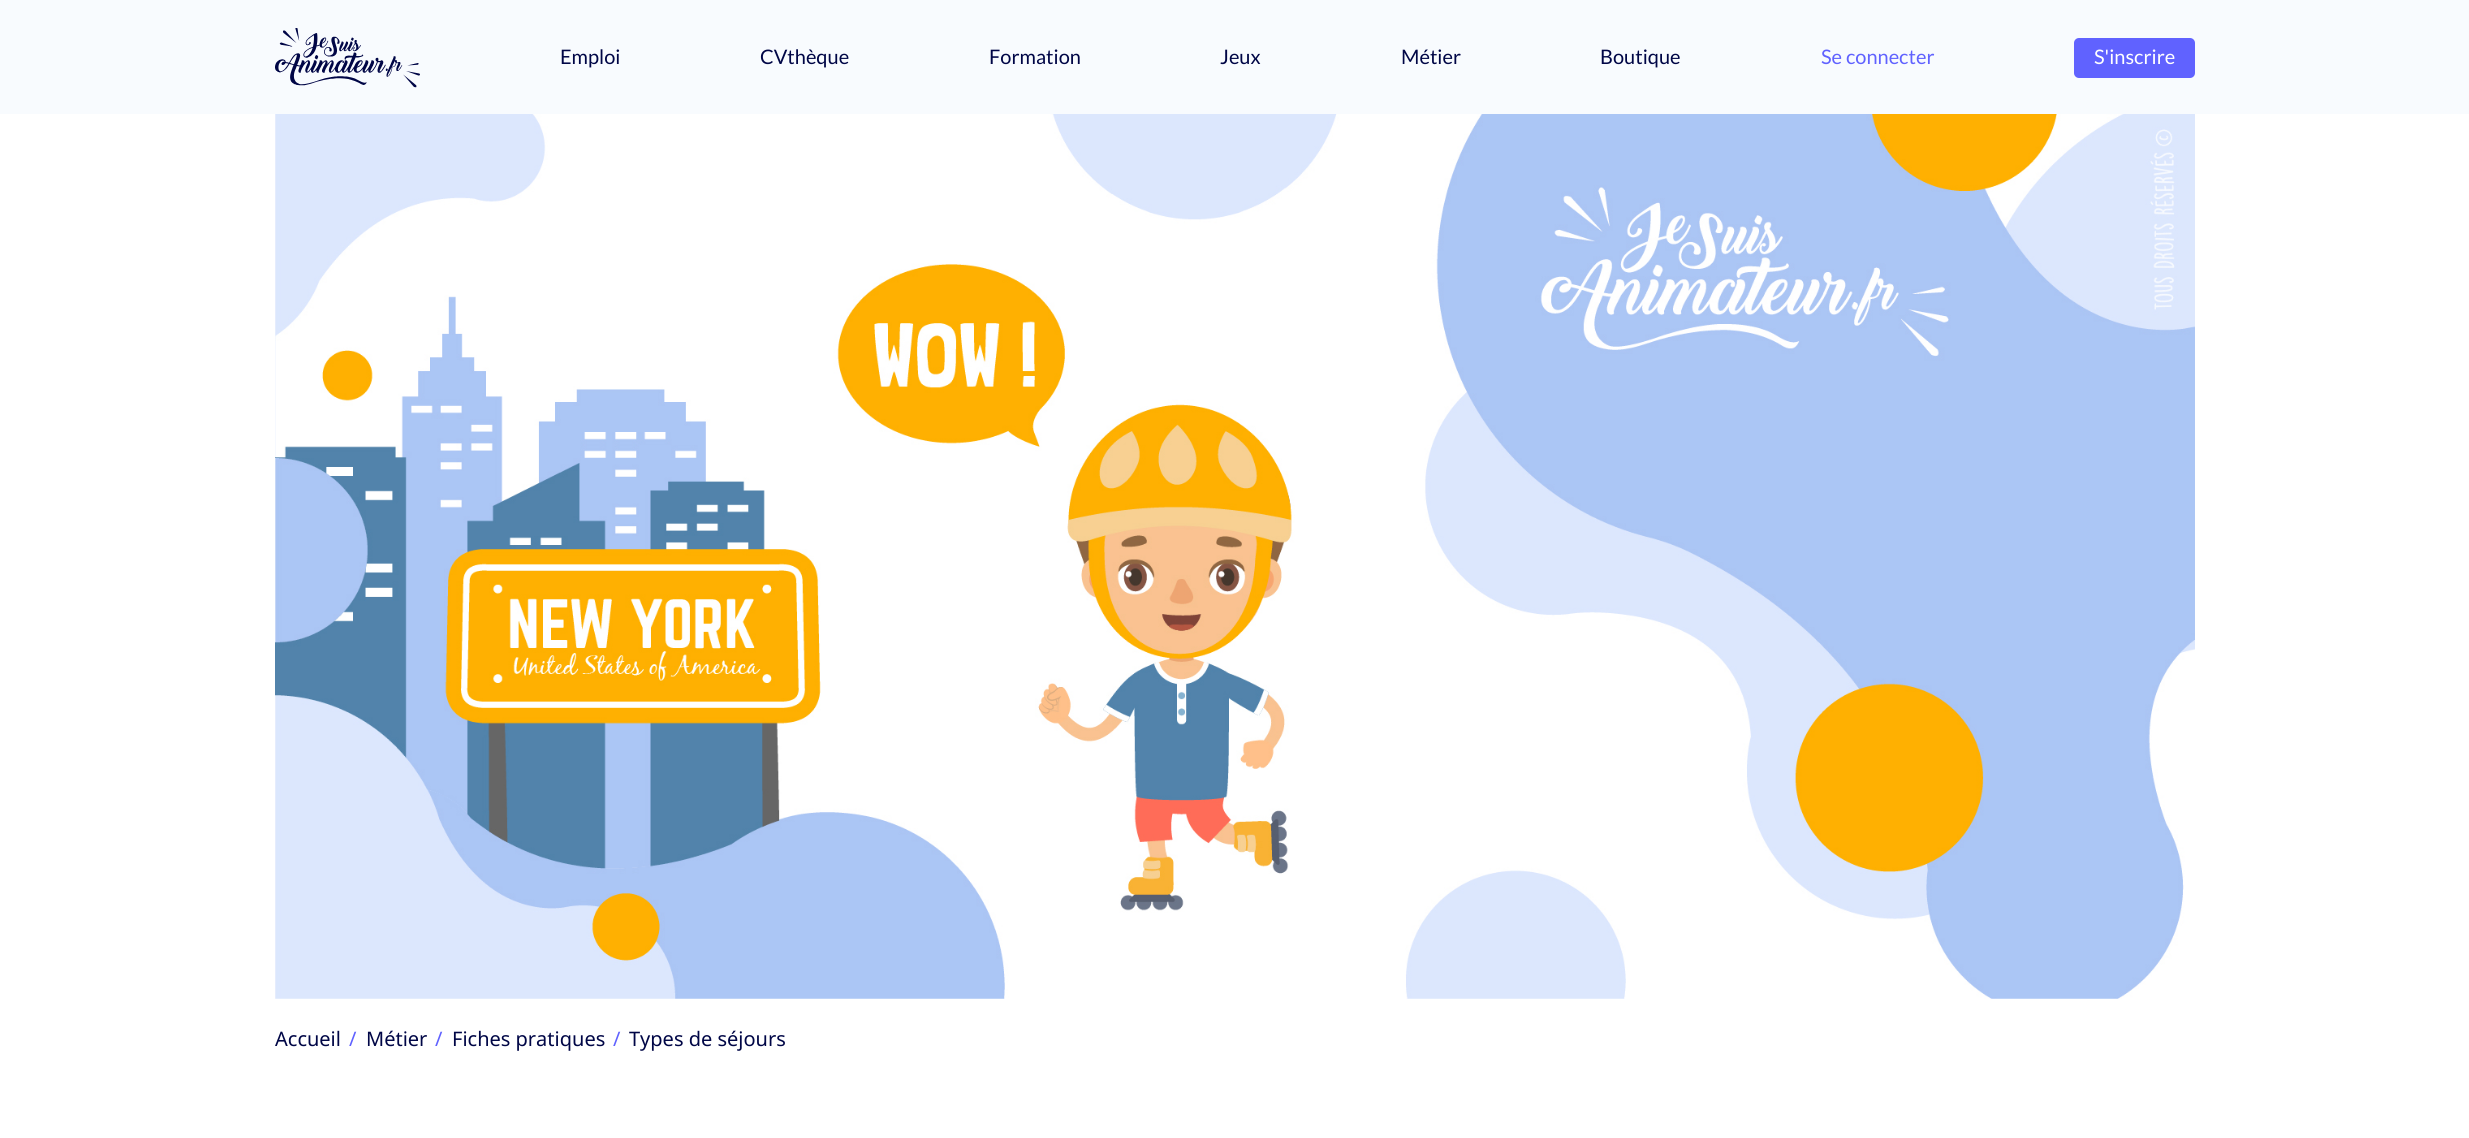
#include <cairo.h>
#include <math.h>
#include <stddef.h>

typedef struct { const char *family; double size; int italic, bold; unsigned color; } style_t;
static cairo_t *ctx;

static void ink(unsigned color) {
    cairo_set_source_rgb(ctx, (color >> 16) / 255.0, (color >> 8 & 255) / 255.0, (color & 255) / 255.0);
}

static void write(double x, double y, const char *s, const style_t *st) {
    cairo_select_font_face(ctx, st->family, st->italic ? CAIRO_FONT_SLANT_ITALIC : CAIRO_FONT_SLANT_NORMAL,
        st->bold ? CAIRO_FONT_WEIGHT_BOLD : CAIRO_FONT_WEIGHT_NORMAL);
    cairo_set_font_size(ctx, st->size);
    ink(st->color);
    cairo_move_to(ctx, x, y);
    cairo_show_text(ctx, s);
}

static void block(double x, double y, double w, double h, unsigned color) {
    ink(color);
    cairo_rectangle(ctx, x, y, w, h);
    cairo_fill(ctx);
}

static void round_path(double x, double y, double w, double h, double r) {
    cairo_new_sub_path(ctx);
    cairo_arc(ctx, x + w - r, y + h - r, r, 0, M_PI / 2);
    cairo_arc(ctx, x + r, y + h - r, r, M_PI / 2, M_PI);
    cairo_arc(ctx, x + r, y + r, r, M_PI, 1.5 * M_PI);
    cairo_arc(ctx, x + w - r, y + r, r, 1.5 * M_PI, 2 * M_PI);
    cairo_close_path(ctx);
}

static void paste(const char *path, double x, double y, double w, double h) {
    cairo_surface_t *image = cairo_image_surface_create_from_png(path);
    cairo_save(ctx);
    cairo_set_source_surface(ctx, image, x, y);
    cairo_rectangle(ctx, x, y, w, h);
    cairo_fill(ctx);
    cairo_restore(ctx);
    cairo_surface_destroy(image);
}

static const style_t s1 = {"Lato", 20, 0, 0, 0x000646};
static const style_t s2 = {"Lato", 20, 0, 0, 0x6062ff};
static const style_t s3 = {"Lato", 20, 0, 0, 0xffffff};
static const style_t s4 = {"Noto Sans", 20, 0, 0, 0x000646};
static const style_t s5 = {"Noto Sans", 20, 0, 0, 0x6062ff};

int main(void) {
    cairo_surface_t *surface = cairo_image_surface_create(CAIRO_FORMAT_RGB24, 2469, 1138);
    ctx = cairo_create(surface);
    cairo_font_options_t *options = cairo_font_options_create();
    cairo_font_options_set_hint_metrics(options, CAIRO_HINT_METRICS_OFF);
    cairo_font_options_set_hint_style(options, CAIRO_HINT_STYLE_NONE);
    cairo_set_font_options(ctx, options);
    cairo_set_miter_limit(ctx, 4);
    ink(0xffffff);
    cairo_paint(ctx);
    block(0, 0, 2469, 114, 0xf8fbfe);
    paste("pic1.png", 275, 28, 145, 60);
    write(560, 64, "Emploi", &s1);
    write(760, 64, "CVthèque", &s1);
    write(989, 64, "Formation", &s1);
    write(1220, 64, "Jeux", &s1);
    write(1401, 64, "Métier", &s1);
    write(1600, 64, "Boutique", &s1);
    write(1821, 64, "Se connecter", &s2);
    round_path(2074, 38, 121, 40, 5);
    cairo_fill(ctx);
    write(2094, 64, "S'inscrire", &s3);
    paste("pic2.png", 275, 114, 1920, 885);
    write(275, 1046, "Accueil", &s4);
    write(349, 1046, "/", &s5);
    write(366, 1046, "Métier", &s4);
    write(435, 1046, "/", &s5);
    write(452, 1046, "Fiches pratiques", &s4);
    write(613, 1046, "/", &s5);
    write(629, 1046, "Types de séjours", &s4);
    cairo_surface_write_to_png(surface, "screenshot.png");
    cairo_font_options_destroy(options);
    cairo_destroy(ctx);
    cairo_surface_destroy(surface);
    return 0;
}
